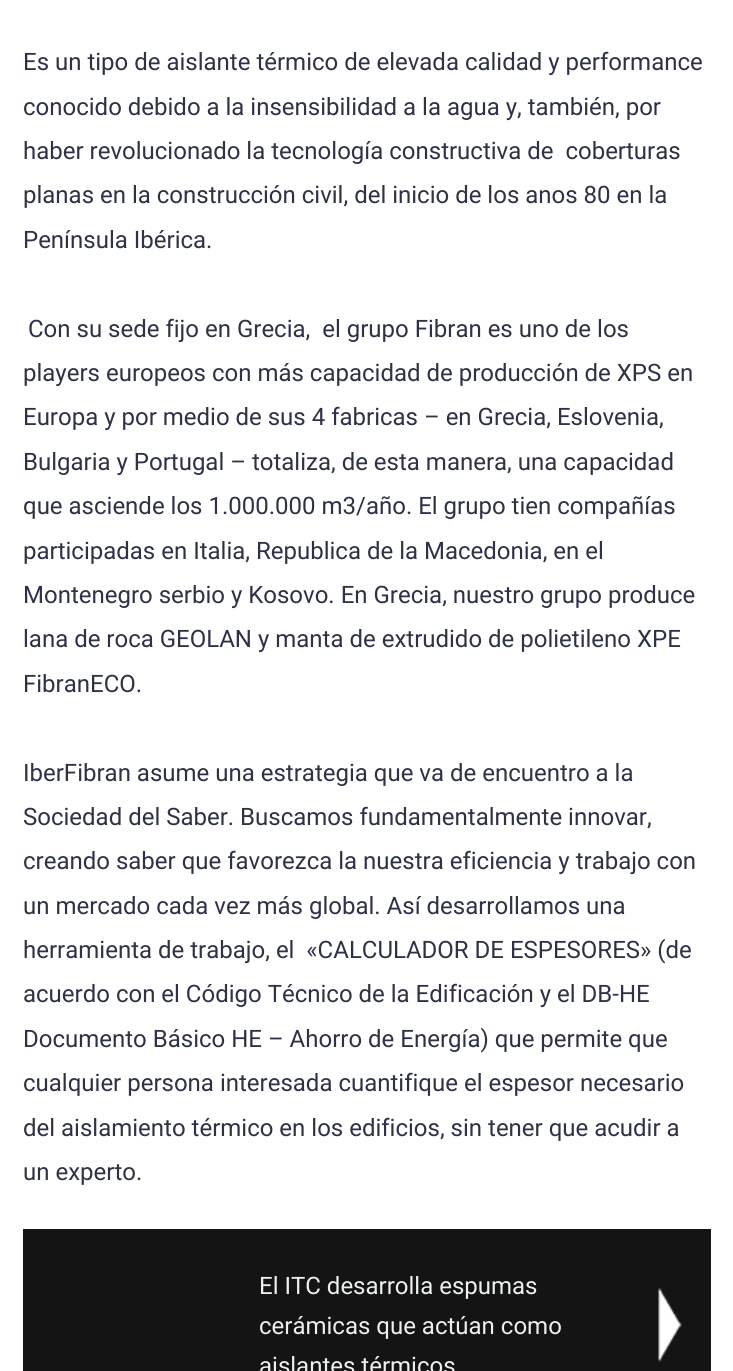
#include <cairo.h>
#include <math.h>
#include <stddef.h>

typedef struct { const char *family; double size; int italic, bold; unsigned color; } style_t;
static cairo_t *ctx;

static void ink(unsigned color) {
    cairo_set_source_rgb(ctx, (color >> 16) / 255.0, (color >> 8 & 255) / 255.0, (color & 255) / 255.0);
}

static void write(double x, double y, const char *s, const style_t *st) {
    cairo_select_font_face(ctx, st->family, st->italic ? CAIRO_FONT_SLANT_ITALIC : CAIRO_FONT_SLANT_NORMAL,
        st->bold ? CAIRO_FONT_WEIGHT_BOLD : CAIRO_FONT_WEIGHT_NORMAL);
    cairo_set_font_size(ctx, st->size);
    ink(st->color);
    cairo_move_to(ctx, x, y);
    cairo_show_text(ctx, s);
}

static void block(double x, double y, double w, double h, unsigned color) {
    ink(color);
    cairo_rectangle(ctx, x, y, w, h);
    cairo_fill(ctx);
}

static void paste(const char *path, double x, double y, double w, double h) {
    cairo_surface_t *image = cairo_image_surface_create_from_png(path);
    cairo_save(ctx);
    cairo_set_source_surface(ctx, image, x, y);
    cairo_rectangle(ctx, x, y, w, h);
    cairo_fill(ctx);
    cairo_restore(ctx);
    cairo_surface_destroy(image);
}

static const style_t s1 = {"Roboto", 24, 0, 0, 0x2e3246};
static const style_t s2 = {"Roboto", 24, 0, 0, 0xecf0f1};

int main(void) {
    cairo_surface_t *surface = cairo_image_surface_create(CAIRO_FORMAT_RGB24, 733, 1371);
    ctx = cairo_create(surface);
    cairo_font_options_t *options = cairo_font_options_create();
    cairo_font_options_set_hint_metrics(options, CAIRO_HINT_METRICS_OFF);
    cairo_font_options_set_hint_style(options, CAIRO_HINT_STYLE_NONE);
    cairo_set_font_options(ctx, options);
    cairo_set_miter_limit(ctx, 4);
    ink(0xffffff);
    cairo_paint(ctx);
    write(23, 70, "Es un tipo de aislante térmico de elevada calidad y performance", &s1);
    write(23, 115, "conocido debido a la insensibilidad a la agua y, también, por", &s1);
    write(23, 159, "haber revolucionado la tecnología constructiva de  coberturas", &s1);
    write(23, 203, "planas en la construcción civil, del inicio de los anos 80 en la", &s1);
    write(23, 248, "Península Ibérica.", &s1);
    write(28, 337, "Con su sede fijo en Grecia,  el grupo Fibran es uno de los", &s1);
    write(23, 381, "players europeos con más capacidad de producción de XPS en", &s1);
    write(23, 425, "Europa y por medio de sus 4 fabricas – en Grecia, Eslovenia,", &s1);
    write(23, 470, "Bulgaria y Portugal – totaliza, de esta manera, una capacidad", &s1);
    write(23, 514, "que asciende los 1.000.000 m3/año. El grupo tien compañías", &s1);
    write(23, 559, "participadas en Italia, Republica de la Macedonia, en el", &s1);
    write(23, 603, "Montenegro serbio y Kosovo. En Grecia, nuestro grupo produce", &s1);
    write(23, 647, "lana de roca GEOLAN y manta de extrudido de polietileno XPE", &s1);
    write(23, 692, "FibranECO.", &s1);
    write(23, 781, "IberFibran asume una estrategia que va de encuentro a la", &s1);
    write(23, 825, "Sociedad del Saber. Buscamos fundamentalmente innovar,", &s1);
    write(23, 869, "creando saber que favorezca la nuestra eficiencia y trabajo con", &s1);
    write(23, 914, "un mercado cada vez más global. Así desarrollamos una", &s1);
    write(23, 958, "herramienta de trabajo, el  «CALCULADOR DE ESPESORES» (de", &s1);
    write(23, 1002, "acuerdo con el Código Técnico de la Edificación y el DB-HE", &s1);
    write(23, 1047, "Documento Básico HE – Ahorro de Energía) que permite que", &s1);
    write(23, 1091, "cualquier persona interesada cuantifique el espesor necesario", &s1);
    write(23, 1136, "del aislamiento térmico en los edificios, sin tener que acudir a", &s1);
    write(23, 1180, "un experto.", &s1);
    block(23, 1229, 688, 142, 0x141414);
    write(259, 1294, "El ITC desarrolla espumas", &s2);
    write(259, 1334, "cerámicas que actúan como", &s2);
    write(259, 1374, "aislantes térmicos", &s2);
    paste("pic1.png", 658, 1287, 24, 75);
    cairo_surface_write_to_png(surface, "screenshot.png");
    cairo_font_options_destroy(options);
    cairo_destroy(ctx);
    cairo_surface_destroy(surface);
    return 0;
}
